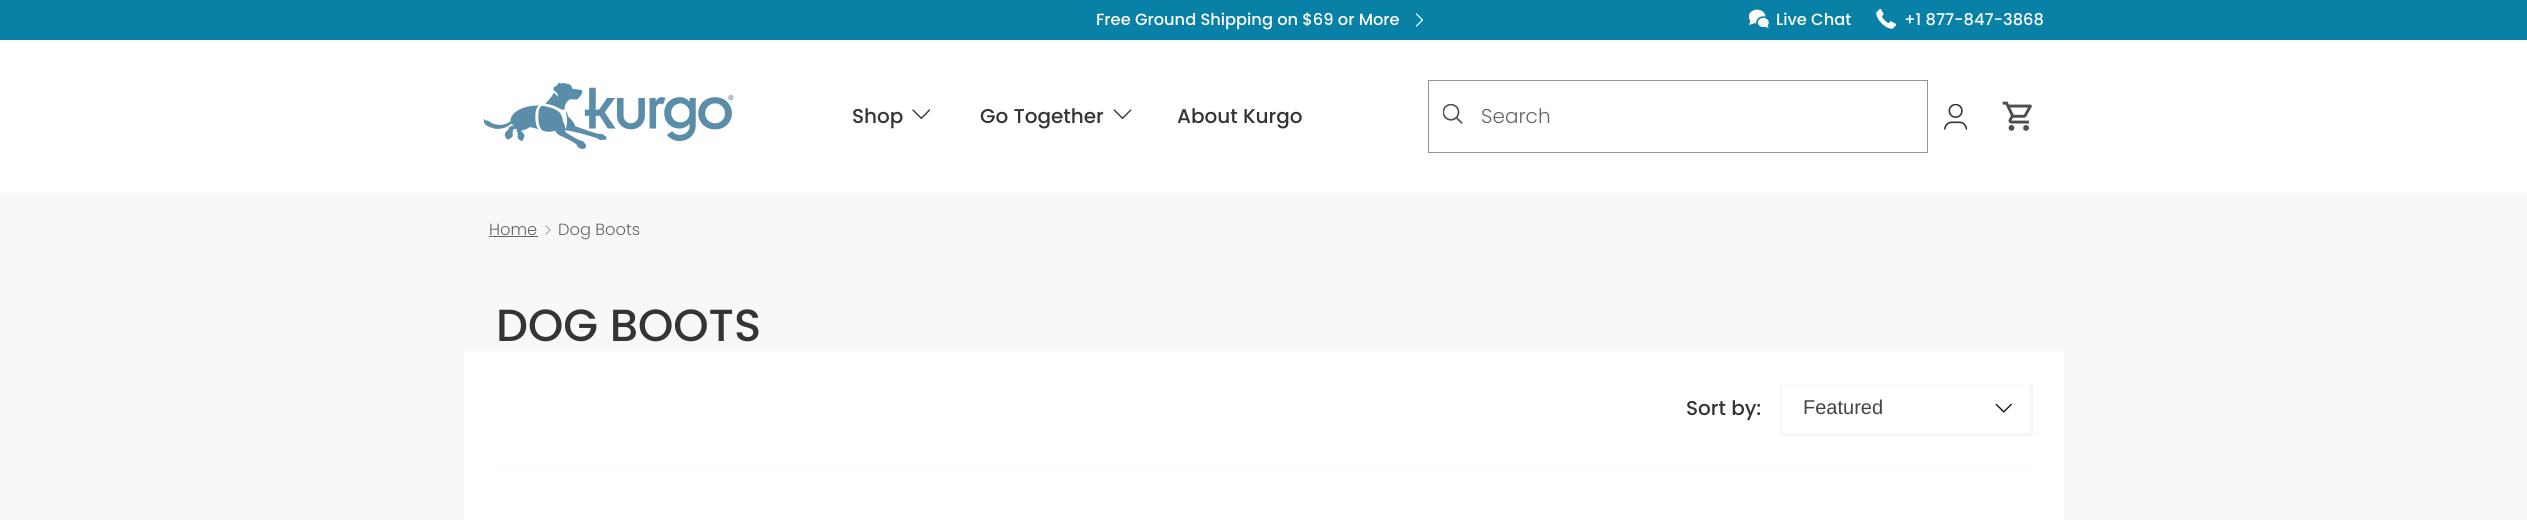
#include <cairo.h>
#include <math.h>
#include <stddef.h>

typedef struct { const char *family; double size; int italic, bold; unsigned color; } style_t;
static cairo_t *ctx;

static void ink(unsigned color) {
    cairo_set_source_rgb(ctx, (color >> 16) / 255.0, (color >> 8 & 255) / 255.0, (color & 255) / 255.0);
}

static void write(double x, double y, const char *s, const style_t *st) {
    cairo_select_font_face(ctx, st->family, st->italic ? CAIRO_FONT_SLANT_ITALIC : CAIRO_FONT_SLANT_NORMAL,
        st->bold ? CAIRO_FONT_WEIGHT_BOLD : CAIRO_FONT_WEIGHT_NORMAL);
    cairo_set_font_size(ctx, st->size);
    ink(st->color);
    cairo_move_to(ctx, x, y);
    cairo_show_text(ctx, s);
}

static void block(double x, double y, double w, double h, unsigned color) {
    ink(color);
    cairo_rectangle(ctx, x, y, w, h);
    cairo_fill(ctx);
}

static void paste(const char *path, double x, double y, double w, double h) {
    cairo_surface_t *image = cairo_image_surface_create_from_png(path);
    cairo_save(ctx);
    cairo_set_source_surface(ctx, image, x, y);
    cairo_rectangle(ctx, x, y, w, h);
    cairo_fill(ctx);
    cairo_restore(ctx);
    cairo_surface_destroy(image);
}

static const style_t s1 = {"Poppins Medium", 16.25, 0, 0, 0xffffff};
static const style_t s2 = {"Poppins Medium", 20, 0, 0, 0x333435};
static const style_t s3 = {"Poppins Light", 20, 0, 0, 0x636467};
static const style_t s4 = {"Poppins Light", 16.25, 0, 0, 0x636467};
static const style_t s5 = {"Poppins Medium", 45, 0, 0, 0x333435};
static const style_t s6 = {"Liberation Sans", 20, 0, 0, 0x444444};

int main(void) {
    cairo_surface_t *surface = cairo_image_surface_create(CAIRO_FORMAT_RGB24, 2527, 520);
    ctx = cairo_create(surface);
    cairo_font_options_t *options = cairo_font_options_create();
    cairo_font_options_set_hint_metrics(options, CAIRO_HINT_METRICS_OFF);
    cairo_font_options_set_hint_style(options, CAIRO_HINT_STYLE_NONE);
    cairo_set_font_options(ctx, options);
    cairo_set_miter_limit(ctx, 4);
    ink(0xffffff);
    cairo_paint(ctx);
    block(0, 0, 2527, 40, 0x0980a5);
    write(1096, 25, "Free Ground Shipping on $69 or More", &s1);
    cairo_new_path(ctx);
    cairo_move_to(ctx, 1416.5, 26);
    cairo_line_to(ctx, 1422.5, 20);
    cairo_line_to(ctx, 1416.5, 14);
    cairo_set_line_width(ctx, 1.2);
    cairo_set_line_cap(ctx, CAIRO_LINE_CAP_ROUND);
    cairo_set_line_join(ctx, CAIRO_LINE_JOIN_ROUND);
    cairo_stroke(ctx);
    paste("pic1.png", 1749, 9, 20, 19);
    write(1776, 25, "Live Chat", &s1);
    paste("pic2.png", 1876, 9, 20, 20);
    write(1904, 25, "+1 877-847-3868", &s1);
    paste("pic3.png", 484, 82, 250, 67);
    write(852, 123, "Shop", &s2);
    paste("pic4.png", 912, 109, 19, 10);
    write(980, 123, "Go Together", &s2);
    paste("pic5.png", 1113, 109, 19, 10);
    write(1177, 123, "About Kurgo", &s2);
    cairo_rectangle(ctx, 1428.5, 80.5, 499, 72);
    ink(0x929496);
    cairo_set_line_width(ctx, 1);
    cairo_set_line_cap(ctx, CAIRO_LINE_CAP_BUTT);
    cairo_set_line_join(ctx, CAIRO_LINE_JOIN_MITER);
    cairo_stroke(ctx);
    paste("pic6.png", 1443, 104, 20, 20);
    write(1481, 123, "Search", &s3);
    paste("pic7.png", 1944, 104, 24, 26);
    paste("pic8.png", 2002, 101, 30, 30);
    block(0, 193, 2527, 327, 0xf8f8f8);
    write(489, 235, "Home", &s4);
    block(489, 236, 49, 1, 0x636467);
    paste("pic9.png", 545, 225, 6, 10);
    write(558, 235, "Dog Boots", &s4);
    write(496, 341, "DOG BOOTS", &s5);
    block(464, 351, 1600, 169, 0xffffff);
    block(496, 466, 1535, 1, 0xf8f8f8);
    write(1686, 415, "Sort by:", &s2);
    ink(0xf5f5f5);
    cairo_new_path(ctx);
    cairo_move_to(ctx, 1780, 384);
    cairo_line_to(ctx, 1780, 436);
    cairo_line_to(ctx, 2033, 436);
    cairo_line_to(ctx, 2033, 384);
    cairo_line_to(ctx, 2031, 384);
    cairo_line_to(ctx, 2031, 434);
    cairo_line_to(ctx, 1781, 434);
    cairo_line_to(ctx, 1781, 384);
    cairo_close_path(ctx);
    cairo_fill(ctx);
    paste("pic10.png", 1995, 403, 17, 10);
    cairo_rectangle(ctx, 1781.5, 384.5, 249, 49);
    ink(0xf8f8f8);
    cairo_stroke(ctx);
    write(1803, 414, "Featured", &s6);
    cairo_surface_write_to_png(surface, "screenshot.png");
    cairo_font_options_destroy(options);
    cairo_destroy(ctx);
    cairo_surface_destroy(surface);
    return 0;
}
